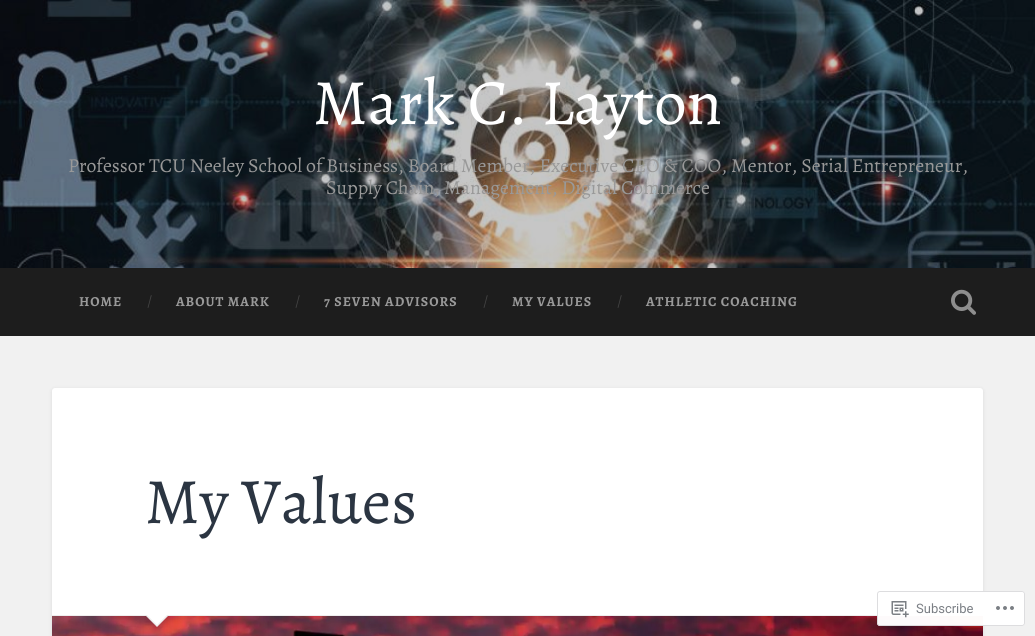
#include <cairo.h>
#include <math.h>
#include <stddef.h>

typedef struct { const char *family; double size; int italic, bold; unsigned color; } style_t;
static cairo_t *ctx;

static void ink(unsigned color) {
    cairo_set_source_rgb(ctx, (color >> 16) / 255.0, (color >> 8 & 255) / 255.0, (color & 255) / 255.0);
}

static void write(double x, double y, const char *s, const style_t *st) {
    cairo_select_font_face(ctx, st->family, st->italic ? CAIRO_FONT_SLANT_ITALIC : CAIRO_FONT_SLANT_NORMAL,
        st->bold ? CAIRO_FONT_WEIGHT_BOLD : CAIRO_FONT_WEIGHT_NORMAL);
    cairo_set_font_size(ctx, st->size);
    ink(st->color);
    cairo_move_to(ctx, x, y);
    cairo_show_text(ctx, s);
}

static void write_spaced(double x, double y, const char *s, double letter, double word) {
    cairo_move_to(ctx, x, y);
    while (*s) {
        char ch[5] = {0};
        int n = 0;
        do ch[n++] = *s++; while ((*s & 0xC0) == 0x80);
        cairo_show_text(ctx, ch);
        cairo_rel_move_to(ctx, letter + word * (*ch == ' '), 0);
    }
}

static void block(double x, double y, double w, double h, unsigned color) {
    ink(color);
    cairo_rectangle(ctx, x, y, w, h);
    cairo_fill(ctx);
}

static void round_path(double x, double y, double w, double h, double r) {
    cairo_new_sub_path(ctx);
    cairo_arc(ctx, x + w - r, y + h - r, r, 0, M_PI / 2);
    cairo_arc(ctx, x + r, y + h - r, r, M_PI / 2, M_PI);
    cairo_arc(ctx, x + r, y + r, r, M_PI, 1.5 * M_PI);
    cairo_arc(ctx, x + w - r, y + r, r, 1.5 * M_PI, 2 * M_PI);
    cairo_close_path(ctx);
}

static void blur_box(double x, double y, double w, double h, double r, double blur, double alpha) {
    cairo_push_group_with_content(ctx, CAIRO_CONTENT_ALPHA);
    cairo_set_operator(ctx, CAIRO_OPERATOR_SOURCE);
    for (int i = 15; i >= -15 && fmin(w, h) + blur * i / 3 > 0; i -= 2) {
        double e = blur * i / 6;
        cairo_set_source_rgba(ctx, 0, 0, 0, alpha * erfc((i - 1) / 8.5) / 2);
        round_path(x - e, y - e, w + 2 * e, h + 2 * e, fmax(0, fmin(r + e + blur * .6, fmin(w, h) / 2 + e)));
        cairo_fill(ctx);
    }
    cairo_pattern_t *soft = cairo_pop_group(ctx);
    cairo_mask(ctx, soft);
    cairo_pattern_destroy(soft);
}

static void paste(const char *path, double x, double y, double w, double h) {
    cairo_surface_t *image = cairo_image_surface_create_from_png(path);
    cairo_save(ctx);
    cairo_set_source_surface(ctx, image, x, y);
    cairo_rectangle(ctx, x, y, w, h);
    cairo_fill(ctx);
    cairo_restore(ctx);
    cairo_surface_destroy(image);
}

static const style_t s1 = {"Alegreya", 64.75, 0, 0, 0xffffff};
static const style_t s2 = {"Alegreya", 19.8, 0, 0, 0x999999};
static const style_t s3 = {"Alegreya", 16, 0, 0, 0x444444};
static const style_t s4 = {"Alegreya", 64.75, 0, 0, 0x2b3542};
static const style_t s5 = {"Roboto", 13, 0, 0, 0x7b7f85};

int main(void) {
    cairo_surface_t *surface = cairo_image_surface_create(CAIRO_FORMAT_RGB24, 1035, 636);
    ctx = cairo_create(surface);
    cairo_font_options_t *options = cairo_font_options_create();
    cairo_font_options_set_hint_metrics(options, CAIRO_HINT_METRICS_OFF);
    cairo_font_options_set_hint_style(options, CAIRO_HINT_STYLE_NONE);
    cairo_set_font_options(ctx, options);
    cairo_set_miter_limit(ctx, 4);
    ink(0xf1f1f1);
    cairo_paint(ctx);
    paste("pic1.png", 0, 0, 1035, 268);
    write(313, 124, "Mark C. Layton", &s1);
    write(68, 172, "Professor TCU Neeley School of Business, Board Member, Executive CEO & COO, Mentor, Serial Entrepreneur,", &s2);
    write(326, 194, "Supply Chain, Management, Digital Commerce", &s2);
    block(0, 268, 1035, 68, 0x1d1d1d);
    cairo_select_font_face(ctx, "Alegreya", CAIRO_FONT_SLANT_NORMAL, CAIRO_FONT_WEIGHT_BOLD);
    cairo_set_font_size(ctx, 13.75);
    ink(0x999999);
    write_spaced(79, 306, "HOME", 1, 0);
    write(147, 306, "/", &s3);
    cairo_select_font_face(ctx, "Alegreya", CAIRO_FONT_SLANT_NORMAL, CAIRO_FONT_WEIGHT_BOLD);
    cairo_set_font_size(ctx, 13.75);
    ink(0x999999);
    write_spaced(176, 306, "ABOUT MARK", 1, 0);
    write(295, 306, "/", &s3);
    cairo_select_font_face(ctx, "Alegreya", CAIRO_FONT_SLANT_NORMAL, CAIRO_FONT_WEIGHT_BOLD);
    cairo_set_font_size(ctx, 13.75);
    ink(0x999999);
    write_spaced(324, 306, "7 SEVEN ADVISORS", 1, 0);
    write(483, 306, "/", &s3);
    cairo_select_font_face(ctx, "Alegreya", CAIRO_FONT_SLANT_NORMAL, CAIRO_FONT_WEIGHT_BOLD);
    cairo_set_font_size(ctx, 13.75);
    ink(0x999999);
    write_spaced(512, 306, "MY VALUES", 1, 0);
    write(617, 306, "/", &s3);
    cairo_select_font_face(ctx, "Alegreya", CAIRO_FONT_SLANT_NORMAL, CAIRO_FONT_WEIGHT_BOLD);
    cairo_set_font_size(ctx, 13.75);
    ink(0x999999);
    write_spaced(646, 306, "ATHLETIC COACHING", 1, 0);
    paste("pic2.png", 951, 289, 25, 26);
    ink(0x000000);
    blur_box(52, 389, 931, 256, 3, 2, 0.1);
    ink(0xffffff);
    round_path(52, 388, 931, 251, 3);
    cairo_fill(ctx);
    block(52, 615, 931, 1, 0xeeeeee);
    write(145, 523, "My Values", &s4);
    paste("pic3.png", 52, 616, 931, 20);
    ink(0xeeeeee);
    cairo_new_path(ctx);
    cairo_move_to(ctx, 145, 615);
    cairo_line_to(ctx, 169, 615);
    cairo_line_to(ctx, 157, 627);
    cairo_close_path(ctx);
    cairo_fill(ctx);
    ink(0xffffff);
    cairo_new_path(ctx);
    cairo_move_to(ctx, 146, 614);
    cairo_line_to(ctx, 168, 614);
    cairo_line_to(ctx, 157, 625);
    cairo_close_path(ctx);
    cairo_fill(ctx);
    cairo_set_source_rgba(ctx, 1, 1, 1, 0.98);
    round_path(877, 591, 148, 35, 3);
    cairo_fill(ctx);
    round_path(877.5, 591.5, 147, 34, 2.5);
    cairo_set_source_rgba(ctx, 0.863, 0.863, 0.871, 0.98);
    cairo_set_line_width(ctx, 1);
    cairo_stroke(ctx);
    paste("pic4.png", 891, 601, 18, 17);
    write(916, 613, "Subscribe", &s5);
    paste("pic5.png", 996, 606, 18, 4);
    cairo_surface_write_to_png(surface, "screenshot.png");
    cairo_font_options_destroy(options);
    cairo_destroy(ctx);
    cairo_surface_destroy(surface);
    return 0;
}
